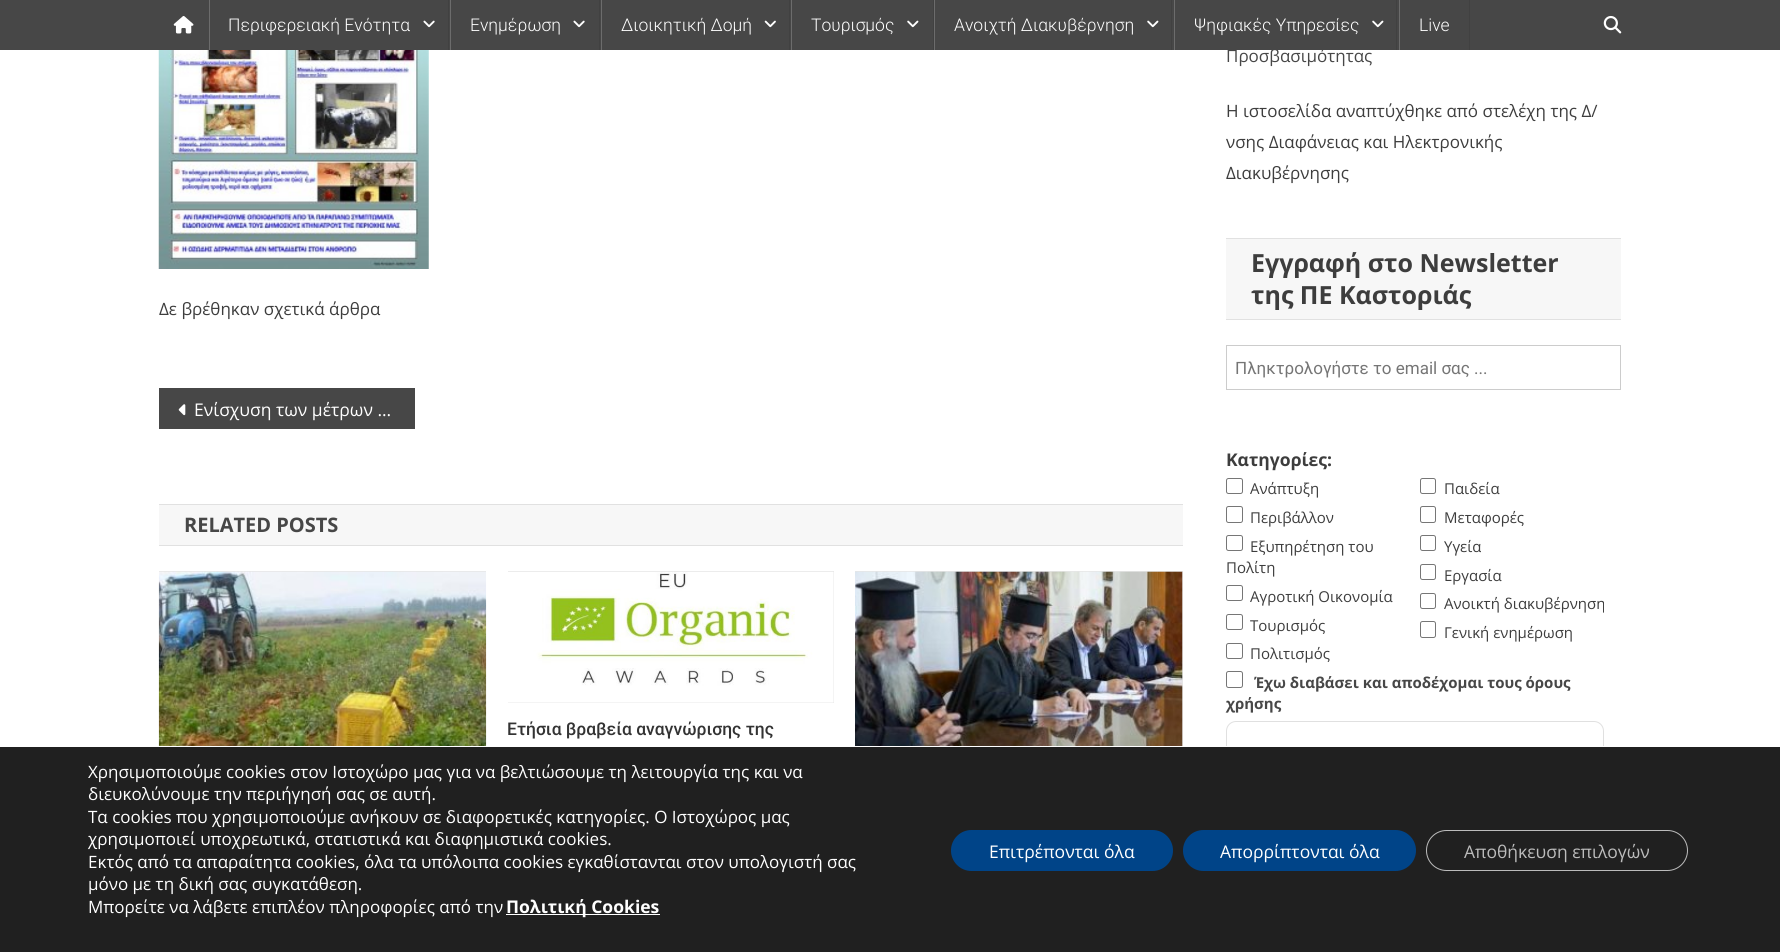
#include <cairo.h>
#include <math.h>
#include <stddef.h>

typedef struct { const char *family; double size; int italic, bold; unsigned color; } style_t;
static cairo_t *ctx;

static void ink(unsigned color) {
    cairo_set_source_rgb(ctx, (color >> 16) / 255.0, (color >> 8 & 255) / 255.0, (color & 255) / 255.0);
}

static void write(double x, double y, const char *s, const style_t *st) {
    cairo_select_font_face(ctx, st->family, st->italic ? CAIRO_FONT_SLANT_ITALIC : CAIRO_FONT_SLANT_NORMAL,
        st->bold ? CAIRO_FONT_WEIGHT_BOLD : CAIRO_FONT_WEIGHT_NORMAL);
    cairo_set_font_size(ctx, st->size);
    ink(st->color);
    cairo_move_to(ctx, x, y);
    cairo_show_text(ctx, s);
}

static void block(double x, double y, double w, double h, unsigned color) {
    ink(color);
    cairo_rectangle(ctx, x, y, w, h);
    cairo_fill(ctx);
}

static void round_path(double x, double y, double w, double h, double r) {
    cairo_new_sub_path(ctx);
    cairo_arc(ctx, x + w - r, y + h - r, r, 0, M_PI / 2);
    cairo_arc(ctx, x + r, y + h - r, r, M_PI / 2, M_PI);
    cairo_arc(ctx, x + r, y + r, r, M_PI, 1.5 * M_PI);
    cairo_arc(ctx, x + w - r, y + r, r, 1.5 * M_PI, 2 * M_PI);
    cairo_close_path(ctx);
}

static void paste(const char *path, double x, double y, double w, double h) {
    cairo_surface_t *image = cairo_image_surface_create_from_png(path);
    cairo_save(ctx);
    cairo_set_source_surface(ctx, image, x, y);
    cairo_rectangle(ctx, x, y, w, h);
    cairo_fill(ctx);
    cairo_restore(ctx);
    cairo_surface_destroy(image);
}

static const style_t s1 = {"Roboto Light", 17.5, 0, 0, 0xffffff};
static const style_t s2 = {"Open Sans", 17, 0, 0, 0x3d3d3d};
static const style_t s3 = {"Open Sans", 17.5, 0, 0, 0xffffff};
static const style_t s4 = {"Open Sans", 20, 0, 1, 0x474747};
static const style_t s5 = {"Roboto Medium", 17.5, 0, 0, 0x333333};
static const style_t s6 = {"Open Sans", 17, 0, 0, 0x474747};
static const style_t s7 = {"Open Sans", 25, 0, 1, 0x3d3d3d};
static const style_t s8 = {"Roboto", 17, 0, 0, 0x757575};
static const style_t s9 = {"Open Sans", 17.5, 0, 1, 0x3d3d3d};
static const style_t s10 = {"Open Sans", 15, 0, 0, 0x3d3d3d};
static const style_t s11 = {"Open Sans", 15, 0, 1, 0x474747};
static const style_t s12 = {"Open Sans", 17, 0, 0, 0xffffff};
static const style_t s13 = {"Open Sans", 17.5, 0, 1, 0xffffff};
static const style_t s14 = {"Open Sans", 17.5, 0, 0, 0xbcbcbc};

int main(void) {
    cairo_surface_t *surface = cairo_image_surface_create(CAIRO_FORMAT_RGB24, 1780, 952);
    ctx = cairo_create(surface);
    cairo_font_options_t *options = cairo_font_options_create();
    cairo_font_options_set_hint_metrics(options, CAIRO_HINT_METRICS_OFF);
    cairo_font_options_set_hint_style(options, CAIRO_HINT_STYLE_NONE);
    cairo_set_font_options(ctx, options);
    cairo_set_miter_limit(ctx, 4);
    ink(0xffffff);
    cairo_paint(ctx);
    block(0, 0, 1780, 50, 0x474747);
    paste("pic1.png", 173, 16, 21, 18);
    block(448, 0, 1, 50, 0x414141);
    block(209, 0, 1, 50, 0x6c6c6c);
    write(228, 31, "Περιφερειακή Ενότητα", &s1);
    paste("pic2.png", 423, 20, 12, 8);
    block(599, 0, 1, 50, 0x414141);
    block(450, 0, 1, 50, 0x6c6c6c);
    write(470, 31, "Ενημέρωση", &s1);
    paste("pic2.png", 573, 20, 12, 8);
    block(789, 0, 1, 50, 0x414141);
    block(601, 0, 1, 50, 0x6c6c6c);
    write(621, 31, "Διοικητική Δομή", &s1);
    paste("pic3.png", 764, 20, 12, 8);
    block(933, 0, 1, 50, 0x414141);
    block(791, 0, 1, 50, 0x6c6c6c);
    write(811, 31, "Τουρισμός", &s1);
    paste("pic4.png", 907, 20, 12, 8);
    block(1171, 0, 1, 50, 0x414141);
    block(934, 0, 1, 50, 0x6c6c6c);
    write(954, 31, "Ανοιχτή Διακυβέρνηση", &s1);
    paste("pic4.png", 1147, 20, 12, 8);
    block(1396, 0, 1, 50, 0x414141);
    block(1174, 0, 1, 50, 0x6c6c6c);
    write(1194, 31, "Ψηφιακές Υπηρεσίες", &s1);
    paste("pic4.png", 1372, 20, 12, 8);
    block(1469, 0, 1, 50, 0x414141);
    block(1399, 0, 1, 50, 0x6c6c6c);
    write(1419, 31, "Live", &s1);
    paste("pic5.png", 1603, 15, 19, 19);
    paste("pic6.png", 158, 50, 271, 219);
    write(159, 315, "Δε βρέθηκαν σχετικά άρθρα", &s2);
    block(159, 388, 256, 41, 0x474747);
    paste("pic7.png", 178, 404, 8, 12);
    write(194, 416, "Ενίσχυση των μέτρων ...", &s3);
    block(159, 505, 1024, 40, 0xf7f7f7);
    block(159, 504, 1024, 1, 0xe1e1e1);
    block(159, 545, 1024, 1, 0xe1e1e1);
    write(184, 532, "RELATED POSTS", &s4);
    block(159, 571, 327, 1, 0xe5e5e5);
    paste("pic8.png", 158, 571, 329, 175);
    block(508, 571, 326, 132, 0xe5e5e5);
    paste("pic9.png", 508, 571, 326, 132);
    write(507, 735, "Ετήσια βραβεία αναγνώρισης της", &s5);
    block(855, 571, 328, 175, 0xe5e5e5);
    paste("pic10.png", 855, 571, 328, 175);
    write(1226, 62, "Προσβασιμότητας", &s6);
    write(1226, 117, "Η ιστοσελίδα αναπτύχθηκε από στελέχη της Δ/", &s2);
    write(1226, 148, "νσης Διαφάνειας και Ηλεκτρονικής", &s2);
    write(1226, 179, "Διακυβέρνησης", &s2);
    block(1226, 239, 395, 80, 0xf7f7f7);
    block(1226, 238, 395, 1, 0xe1e1e1);
    block(1226, 319, 395, 1, 0xe1e1e1);
    write(1251, 272, "Εγγραφή στο Newsletter", &s7);
    write(1251, 304, "της ΠΕ Καστοριάς", &s7);
    cairo_rectangle(ctx, 1226.5, 345.5, 394, 44);
    ink(0xcccccc);
    cairo_set_line_width(ctx, 1);
    cairo_stroke(ctx);
    write(1235, 374, "Πληκτρολογήστε το email σας ...", &s8);
    write(1226, 466, "Κατηγορίες:", &s9);
    round_path(1226.5, 478.5, 16, 15, 2);
    ink(0x767676);
    cairo_stroke(ctx);
    write(1250, 494, "Ανάπτυξη", &s10);
    round_path(1226.5, 506.5, 16, 16, 2);
    ink(0x767676);
    cairo_stroke(ctx);
    write(1250, 523, "Περιβάλλον", &s10);
    round_path(1226.5, 535.5, 16, 15, 2);
    ink(0x767676);
    cairo_stroke(ctx);
    write(1250, 552, "Εξυπηρέτηση του", &s10);
    write(1226, 573, "Πολίτη", &s10);
    round_path(1226.5, 585.5, 16, 15, 2);
    ink(0x767676);
    cairo_stroke(ctx);
    write(1250, 602, "Αγροτική Οικονομία", &s10);
    round_path(1226.5, 614.5, 16, 15, 2);
    ink(0x767676);
    cairo_stroke(ctx);
    write(1250, 631, "Τουρισμός", &s10);
    round_path(1226.5, 643.5, 16, 15, 2);
    ink(0x767676);
    cairo_stroke(ctx);
    write(1250, 659, "Πολιτισμός", &s10);
    round_path(1420.5, 478.5, 15, 15, 2);
    ink(0x767676);
    cairo_stroke(ctx);
    write(1444, 494, "Παιδεία", &s10);
    round_path(1420.5, 506.5, 15, 16, 2);
    ink(0x767676);
    cairo_stroke(ctx);
    write(1444, 523, "Μεταφορές", &s10);
    round_path(1420.5, 535.5, 15, 15, 2);
    ink(0x767676);
    cairo_stroke(ctx);
    write(1444, 552, "Υγεία", &s10);
    round_path(1420.5, 564.5, 15, 15, 2);
    ink(0x767676);
    cairo_stroke(ctx);
    write(1444, 581, "Εργασία", &s10);
    round_path(1420.5, 593.5, 15, 15, 2);
    ink(0x767676);
    cairo_stroke(ctx);
    write(1444, 609, "Ανοικτή διακυβέρνηση", &s10);
    round_path(1420.5, 621.5, 15, 16, 2);
    ink(0x767676);
    cairo_stroke(ctx);
    write(1444, 638, "Γενική ενημέρωση", &s10);
    round_path(1226.5, 671.5, 16, 16, 2);
    ink(0x767676);
    cairo_stroke(ctx);
    write(1254, 688, "Έχω διαβάσει και αποδέχομαι τους όρους", &s11);
    write(1226, 709, "χρήσης", &s11);
    round_path(1226.5, 721.5, 377, 99, 9.5);
    ink(0xe0e0e0);
    cairo_stroke(ctx);
    block(0, 747, 1780, 205, 0x202020);
    block(1226, 746, 378, 1, 0xffffff);
    write(88, 778, "Χρησιμοποιούμε cookies στον Ιστοχώρο μας για να βελτιώσουμε τη λειτουργία της και να", &s12);
    write(88, 800, "διευκολύνουμε την περιήγησή σας σε αυτή.", &s12);
    write(88, 823, "Τα cookies που χρησιμοποιούμε ανήκουν σε διαφορετικές κατηγορίες. Ο Ιστοχώρος μας", &s12);
    write(88, 845, "χρησιμοποιεί υποχρεωτικά, στατιστικά και διαφημιστικά cookies.", &s12);
    write(88, 868, "Εκτός από τα απαραίτητα cookies, όλα τα υπόλοιπα cookies εγκαθίστανται στον υπολογιστή σας", &s12);
    write(88, 890, "μόνο με τη δική σας συγκατάθεση.", &s12);
    write(88, 913, "Μπορείτε να λάβετε επιπλέον πληροφορίες από την", &s12);
    block(506, 914, 154, 1, 0xffffff);
    write(506, 913, "Πολιτική Cookies", &s13);
    ink(0x004488);
    round_path(951, 830, 222, 41, 20.5);
    cairo_fill(ctx);
    write(989, 858, "Επιτρέπονται όλα", &s3);
    ink(0x004488);
    round_path(1183, 830, 233, 41, 20.5);
    cairo_fill(ctx);
    write(1220, 858, "Απορρίπτονται όλα", &s3);
    round_path(1426.5, 830.5, 261, 40, 20);
    ink(0xbcbcbc);
    cairo_stroke(ctx);
    write(1464, 858, "Αποθήκευση επιλογών", &s14);
    cairo_surface_write_to_png(surface, "screenshot.png");
    cairo_font_options_destroy(options);
    cairo_destroy(ctx);
    cairo_surface_destroy(surface);
    return 0;
}
